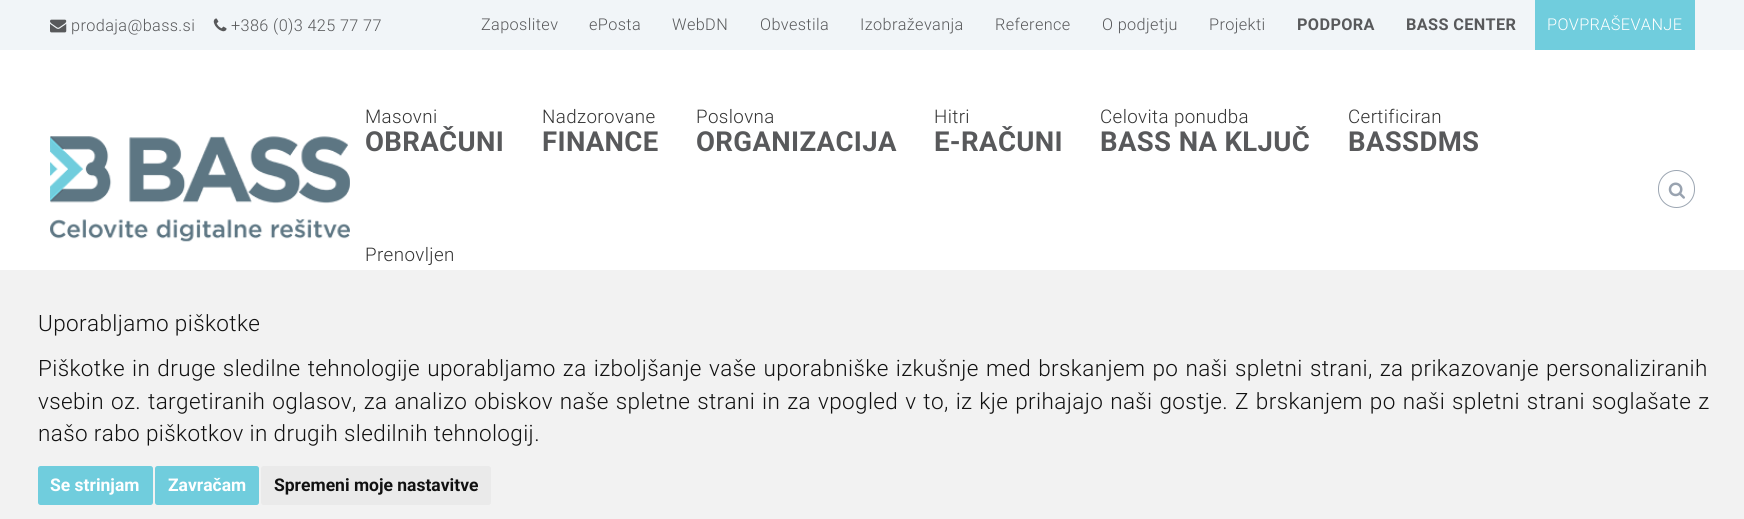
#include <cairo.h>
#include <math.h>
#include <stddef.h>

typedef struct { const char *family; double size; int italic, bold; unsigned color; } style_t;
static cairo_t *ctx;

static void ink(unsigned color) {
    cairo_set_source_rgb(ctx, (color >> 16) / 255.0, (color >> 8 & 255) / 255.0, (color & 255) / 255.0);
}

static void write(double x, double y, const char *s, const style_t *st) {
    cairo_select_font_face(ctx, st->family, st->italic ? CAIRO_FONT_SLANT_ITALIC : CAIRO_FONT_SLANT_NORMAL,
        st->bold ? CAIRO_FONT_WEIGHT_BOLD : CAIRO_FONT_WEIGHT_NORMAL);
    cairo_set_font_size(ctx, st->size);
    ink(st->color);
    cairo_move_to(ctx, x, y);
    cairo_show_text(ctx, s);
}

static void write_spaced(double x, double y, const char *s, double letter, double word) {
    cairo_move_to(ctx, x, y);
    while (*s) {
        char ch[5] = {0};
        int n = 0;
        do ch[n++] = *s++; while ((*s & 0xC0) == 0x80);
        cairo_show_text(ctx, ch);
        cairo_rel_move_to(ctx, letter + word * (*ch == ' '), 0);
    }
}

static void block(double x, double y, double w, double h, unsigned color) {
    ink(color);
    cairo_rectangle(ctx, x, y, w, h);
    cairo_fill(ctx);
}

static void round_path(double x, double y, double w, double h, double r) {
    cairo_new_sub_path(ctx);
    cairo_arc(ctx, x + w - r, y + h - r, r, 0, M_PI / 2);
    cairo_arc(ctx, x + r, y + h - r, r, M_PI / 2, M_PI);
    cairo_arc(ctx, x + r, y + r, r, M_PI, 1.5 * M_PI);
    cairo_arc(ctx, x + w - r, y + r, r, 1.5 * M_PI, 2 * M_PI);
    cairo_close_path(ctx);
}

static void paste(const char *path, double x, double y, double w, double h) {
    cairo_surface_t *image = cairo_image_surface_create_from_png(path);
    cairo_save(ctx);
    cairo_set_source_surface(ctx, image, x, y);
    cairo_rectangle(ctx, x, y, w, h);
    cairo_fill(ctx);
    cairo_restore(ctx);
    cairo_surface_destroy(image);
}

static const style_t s1 = {"Roboto", 17.5, 0, 1, 0xffffff};
static const style_t s2 = {"Roboto", 17.5, 0, 1, 0x111111};

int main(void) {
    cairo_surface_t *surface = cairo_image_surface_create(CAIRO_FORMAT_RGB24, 1744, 519);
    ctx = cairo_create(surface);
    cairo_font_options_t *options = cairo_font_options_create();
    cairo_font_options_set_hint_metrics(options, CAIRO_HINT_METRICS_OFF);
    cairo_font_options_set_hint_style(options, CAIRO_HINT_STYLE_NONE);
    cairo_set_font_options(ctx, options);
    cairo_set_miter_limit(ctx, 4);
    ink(0xffffff);
    cairo_paint(ctx);
    block(0, 0, 1744, 50, 0xf1f5f8);
    paste("pic1.png", 50, 19, 17, 14);
    cairo_select_font_face(ctx, "Roboto Light", CAIRO_FONT_SLANT_NORMAL, CAIRO_FONT_WEIGHT_NORMAL);
    cairo_set_font_size(ctx, 16.25);
    ink(0x58595b);
    write_spaced(71, 31, "prodaja@bass.si", 0.38, 0);
    paste("pic2.png", 213, 18, 14, 14);
    write_spaced(231, 31, "+386 (0)3 425 77 77", 0.38, 0);
    write_spaced(481, 30, "Zaposlitev", 0.38, 0);
    write_spaced(589, 30, "ePosta", 0.38, 0);
    write_spaced(672, 30, "WebDN", 0.38, 0);
    write_spaced(760, 30, "Obvestila", 0.38, 0);
    write_spaced(860, 30, "Izobraževanja", 0.38, 0);
    write_spaced(995, 30, "Reference", 0.38, 0);
    write_spaced(1102, 30, "O podjetju", 0.38, 0);
    write_spaced(1209, 30, "Projekti", 0.38, 0);
    cairo_select_font_face(ctx, "Roboto", CAIRO_FONT_SLANT_NORMAL, CAIRO_FONT_WEIGHT_BOLD);
    write_spaced(1297, 30, "PODPORA", 0.38, 0);
    write_spaced(1406, 30, "BASS CENTER", 0.38, 0);
    block(1535, 0, 160, 50, 0x70cddd);
    cairo_select_font_face(ctx, "Roboto Light", CAIRO_FONT_SLANT_NORMAL, CAIRO_FONT_WEIGHT_NORMAL);
    ink(0xffffff);
    write_spaced(1547, 30, "POVPRAŠEVANJE", 0.38, 0);
    paste("pic3.png", 50, 136, 300, 106);
    cairo_set_font_size(ctx, 18.75);
    ink(0x333333);
    write_spaced(365, 123, "Masovni", 0.38, 0);
    cairo_select_font_face(ctx, "Roboto", CAIRO_FONT_SLANT_NORMAL, CAIRO_FONT_WEIGHT_BOLD);
    cairo_set_font_size(ctx, 27.5);
    ink(0x58595b);
    write_spaced(365, 151, "OBRAČUNI", 0.38, 0);
    cairo_select_font_face(ctx, "Roboto Light", CAIRO_FONT_SLANT_NORMAL, CAIRO_FONT_WEIGHT_NORMAL);
    cairo_set_font_size(ctx, 18.75);
    ink(0x333333);
    write_spaced(542, 123, "Nadzorovane", 0.38, 0);
    cairo_select_font_face(ctx, "Roboto", CAIRO_FONT_SLANT_NORMAL, CAIRO_FONT_WEIGHT_BOLD);
    cairo_set_font_size(ctx, 27.5);
    ink(0x58595b);
    write_spaced(542, 151, "FINANCE", 0.38, 0);
    cairo_select_font_face(ctx, "Roboto Light", CAIRO_FONT_SLANT_NORMAL, CAIRO_FONT_WEIGHT_NORMAL);
    cairo_set_font_size(ctx, 18.75);
    ink(0x333333);
    write_spaced(696, 123, "Poslovna", 0.38, 0);
    cairo_select_font_face(ctx, "Roboto", CAIRO_FONT_SLANT_NORMAL, CAIRO_FONT_WEIGHT_BOLD);
    cairo_set_font_size(ctx, 27.5);
    ink(0x58595b);
    write_spaced(696, 151, "ORGANIZACIJA", 0.38, 0);
    cairo_select_font_face(ctx, "Roboto Light", CAIRO_FONT_SLANT_NORMAL, CAIRO_FONT_WEIGHT_NORMAL);
    cairo_set_font_size(ctx, 18.75);
    ink(0x333333);
    write_spaced(934, 123, "Hitri", 0.38, 0);
    cairo_select_font_face(ctx, "Roboto", CAIRO_FONT_SLANT_NORMAL, CAIRO_FONT_WEIGHT_BOLD);
    cairo_set_font_size(ctx, 27.5);
    ink(0x58595b);
    write_spaced(934, 151, "E-RAČUNI", 0.38, 0);
    cairo_select_font_face(ctx, "Roboto Light", CAIRO_FONT_SLANT_NORMAL, CAIRO_FONT_WEIGHT_NORMAL);
    cairo_set_font_size(ctx, 18.75);
    ink(0x333333);
    write_spaced(1100, 123, "Celovita ponudba", 0.38, 0);
    cairo_select_font_face(ctx, "Roboto", CAIRO_FONT_SLANT_NORMAL, CAIRO_FONT_WEIGHT_BOLD);
    cairo_set_font_size(ctx, 27.5);
    ink(0x58595b);
    write_spaced(1100, 151, "BASS NA KLJUČ", 0.38, 0);
    cairo_select_font_face(ctx, "Roboto Light", CAIRO_FONT_SLANT_NORMAL, CAIRO_FONT_WEIGHT_NORMAL);
    cairo_set_font_size(ctx, 18.75);
    ink(0x333333);
    write_spaced(1348, 123, "Certificiran", 0.38, 0);
    cairo_select_font_face(ctx, "Roboto", CAIRO_FONT_SLANT_NORMAL, CAIRO_FONT_WEIGHT_BOLD);
    cairo_set_font_size(ctx, 27.5);
    ink(0x58595b);
    write_spaced(1348, 151, "BASSDMS", 0.38, 0);
    cairo_select_font_face(ctx, "Roboto Light", CAIRO_FONT_SLANT_NORMAL, CAIRO_FONT_WEIGHT_NORMAL);
    cairo_set_font_size(ctx, 18.75);
    ink(0x333333);
    write_spaced(365, 261, "Prenovljen", 0.38, 0);
    round_path(1658.5, 170.5, 36, 37, 18);
    ink(0x9ca6b2);
    cairo_set_line_width(ctx, 1);
    cairo_stroke(ctx);
    paste("pic4.png", 1668, 182, 17, 17);
    block(0, 270, 1744, 249, 0xf2f2f2);
    cairo_set_font_size(ctx, 22.5);
    ink(0x111111);
    write_spaced(38, 331, "Uporabljamo piškotke", 0.38, 0);
    write_spaced(38, 376, "Piškotke in druge sledilne tehnologije uporabljamo za izboljšanje vaše uporabniške izkušnje med brskanjem po naši spletni strani, za prikazovanje personaliziranih", 0.38, 1.25);
    write_spaced(38, 409, "vsebin oz. targetiranih oglasov, za analizo obiskov naše spletne strani in za vpogled v to, iz kje prihajajo naši gostje. Z brskanjem po naši spletni strani soglašate z", 0.38, 1.1);
    write_spaced(38, 441, "našo rabo piškotkov in drugih sledilnih tehnologij.", 0.38, 0);
    ink(0x70cddd);
    round_path(38, 466, 115, 39, 2.5);
    cairo_fill(ctx);
    write(50, 491, "Se strinjam", &s1);
    ink(0x70cddd);
    round_path(155, 466, 104, 39, 2.5);
    cairo_fill(ctx);
    write(168, 491, "Zavračam", &s1);
    ink(0xeaeaea);
    round_path(261, 466, 230, 39, 2.5);
    cairo_fill(ctx);
    write(274, 491, "Spremeni moje nastavitve", &s2);
    cairo_surface_write_to_png(surface, "screenshot.png");
    cairo_font_options_destroy(options);
    cairo_destroy(ctx);
    cairo_surface_destroy(surface);
    return 0;
}
